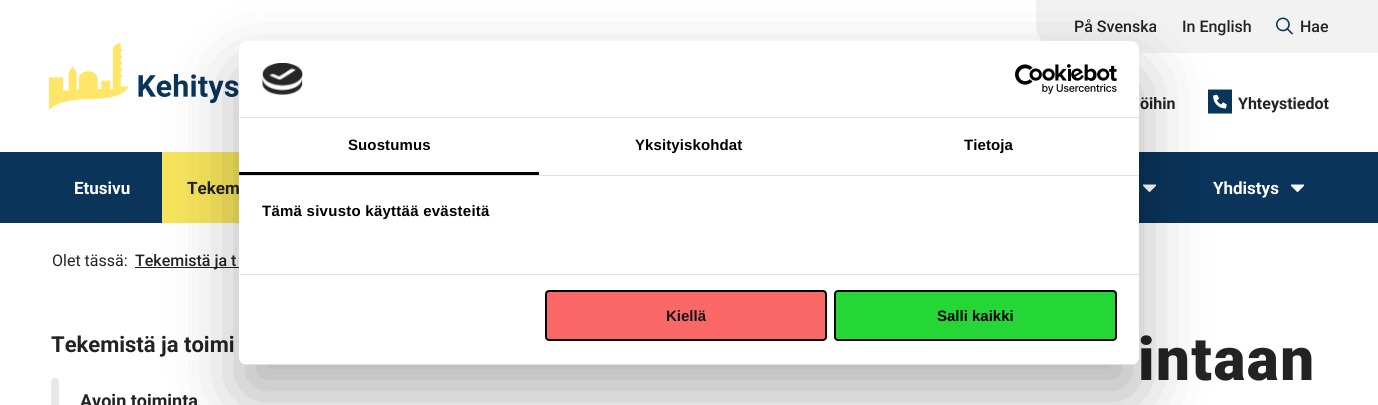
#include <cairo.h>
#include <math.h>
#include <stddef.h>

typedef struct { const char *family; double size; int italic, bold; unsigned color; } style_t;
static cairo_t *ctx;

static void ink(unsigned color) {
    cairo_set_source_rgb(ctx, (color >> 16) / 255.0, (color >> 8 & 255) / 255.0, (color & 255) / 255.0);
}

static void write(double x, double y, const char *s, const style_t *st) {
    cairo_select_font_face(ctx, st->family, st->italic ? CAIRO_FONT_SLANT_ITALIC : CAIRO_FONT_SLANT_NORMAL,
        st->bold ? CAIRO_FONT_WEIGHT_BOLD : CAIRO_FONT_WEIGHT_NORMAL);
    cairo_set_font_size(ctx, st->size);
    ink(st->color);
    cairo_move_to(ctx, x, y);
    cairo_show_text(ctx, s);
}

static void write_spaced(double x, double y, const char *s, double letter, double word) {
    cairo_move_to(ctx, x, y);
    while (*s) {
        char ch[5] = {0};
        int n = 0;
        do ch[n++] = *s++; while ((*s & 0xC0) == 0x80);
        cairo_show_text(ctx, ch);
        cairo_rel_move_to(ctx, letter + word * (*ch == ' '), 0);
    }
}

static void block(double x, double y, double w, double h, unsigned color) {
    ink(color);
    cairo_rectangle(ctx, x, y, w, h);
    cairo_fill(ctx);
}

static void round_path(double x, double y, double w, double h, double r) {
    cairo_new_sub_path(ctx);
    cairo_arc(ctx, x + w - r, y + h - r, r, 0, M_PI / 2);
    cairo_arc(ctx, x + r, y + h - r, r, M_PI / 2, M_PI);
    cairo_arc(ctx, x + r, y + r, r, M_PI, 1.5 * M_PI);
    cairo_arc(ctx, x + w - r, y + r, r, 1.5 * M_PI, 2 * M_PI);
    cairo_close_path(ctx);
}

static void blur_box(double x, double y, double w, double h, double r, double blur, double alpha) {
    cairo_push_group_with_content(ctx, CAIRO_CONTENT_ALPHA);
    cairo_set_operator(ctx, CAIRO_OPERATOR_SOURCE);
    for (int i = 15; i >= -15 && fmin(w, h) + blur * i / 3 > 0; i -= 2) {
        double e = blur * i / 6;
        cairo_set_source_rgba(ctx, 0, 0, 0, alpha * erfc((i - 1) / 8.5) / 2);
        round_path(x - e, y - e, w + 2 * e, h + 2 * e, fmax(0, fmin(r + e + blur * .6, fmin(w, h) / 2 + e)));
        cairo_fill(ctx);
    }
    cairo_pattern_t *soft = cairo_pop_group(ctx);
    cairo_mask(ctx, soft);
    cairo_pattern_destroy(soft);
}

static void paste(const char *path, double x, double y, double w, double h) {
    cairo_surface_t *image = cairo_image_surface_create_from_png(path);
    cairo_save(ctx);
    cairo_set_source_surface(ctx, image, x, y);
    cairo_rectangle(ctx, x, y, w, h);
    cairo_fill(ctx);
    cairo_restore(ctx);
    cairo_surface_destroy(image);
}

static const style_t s1 = {"Roboto Medium", 16, 0, 0, 0x232323};
static const style_t s2 = {"Roboto", 16, 0, 1, 0x232323};
static const style_t s3 = {"Roboto", 17, 0, 1, 0xffffff};
static const style_t s4 = {"Roboto", 17, 0, 1, 0x232323};
static const style_t s5 = {"Roboto", 16, 0, 0, 0x232323};
static const style_t s6 = {"Roboto", 22, 0, 1, 0x232323};
static const style_t s7 = {"Roboto", 18, 0, 1, 0x232323};
static const style_t s8 = {"Liberation Sans", 15, 0, 1, 0x141414};
static const style_t s9 = {"Liberation Sans", 15, 0, 1, 0x000000};

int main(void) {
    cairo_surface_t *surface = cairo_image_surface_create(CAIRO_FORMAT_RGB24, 1378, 405);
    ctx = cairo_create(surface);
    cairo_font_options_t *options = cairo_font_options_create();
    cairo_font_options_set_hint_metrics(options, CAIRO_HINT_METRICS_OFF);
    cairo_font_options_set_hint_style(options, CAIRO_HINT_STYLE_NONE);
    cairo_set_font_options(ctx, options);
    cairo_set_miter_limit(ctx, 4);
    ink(0xffffff);
    cairo_paint(ctx);
    paste("pic1.png", 49, 43, 190, 66);
    ink(0xf2f2f2);
    cairo_new_path(ctx);
    cairo_move_to(ctx, 1036, 0);
    cairo_line_to(ctx, 1329, 0);
    cairo_line_to(ctx, 1329, 53);
    cairo_line_to(ctx, 1066, 53);
    cairo_curve_to(ctx, 1049.5, 53, 1036, 39.5, 1036, 23);
    cairo_close_path(ctx);
    cairo_fill(ctx);
    write(1074, 32, "På Svenska", &s1);
    write(1182, 32, "In English", &s1);
    paste("pic2.png", 1276, 17, 17, 18);
    write(1300, 32, "Hae", &s1);
    block(1329, 0, 49, 53, 0xf2f2f2);
    write(1140, 109, "öihin", &s2);
    paste("pic3.png", 1208, 89, 24, 25);
    write(1238, 109, "Yhteystiedot", &s2);
    block(0, 152, 1378, 71, 0x0a345a);
    write(74, 194, "Etusivu", &s3);
    block(162, 152, 77, 71, 0xf7e45c);
    write(187, 194, "Tekem", &s4);
    paste("pic4.png", 1143, 184, 13, 9);
    write(1213, 194, "Yhdistys", &s3);
    paste("pic4.png", 1291, 184, 13, 9);
    write(52, 266, "Olet tässä:", &s5);
    block(135, 267, 104, 1, 0x232323);
    write(135, 266, "Tekemistä ja t", &s1);
    write(51, 352, "Tekemistä ja toimi", &s6);
    ink(0xe8e8e8);
    round_path(51, 378, 8, 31, 4);
    cairo_fill(ctx);
    write(80, 407, "Avoin toiminta", &s7);
    cairo_select_font_face(ctx, "Roboto Black", CAIRO_FONT_SLANT_NORMAL, CAIRO_FONT_WEIGHT_NORMAL);
    cairo_set_font_size(ctx, 60);
    write_spaced(1138, 380, "intaan", 1.5, 0);
    ink(0x000000);
    blur_box(239, 73, 900, 324, 8, 34, 0.3);
    ink(0xffffff);
    round_path(239, 41, 900, 324, 8);
    cairo_fill(ctx);
    block(239, 117, 900, 1, 0xe6e0e0);
    paste("pic5.png", 262, 63, 41, 32);
    paste("pic6.png", 1015, 64, 102, 30);
    block(239, 175, 900, 1, 0xe6e0e0);
    block(239, 172, 300, 3, 0x000000);
    cairo_select_font_face(ctx, "Liberation Sans", CAIRO_FONT_SLANT_NORMAL, CAIRO_FONT_WEIGHT_BOLD);
    cairo_set_font_size(ctx, 15);
    write_spaced(348, 150, "Suostumus", 0.1, 0);
    write_spaced(635, 150, "Yksityiskohdat", 0.1, 0);
    write_spaced(964, 150, "Tietoja", 0.1, 0);
    block(239, 274, 900, 1, 0xe6e0e0);
    ink(0x000000);
    write_spaced(262, 216, "Tämä sivusto käyttää evästeitä", 0.25, 0);
    cairo_save(ctx);
    round_path(239, 41, 900, 324, 8);
    cairo_clip(ctx);
    block(239, 364, 900, 1, 0xe6e0e0);
    cairo_restore(ctx);
    ink(0xf96767);
    round_path(546, 291, 280, 49, 3);
    cairo_fill_preserve(ctx);
    ink(0x000000);
    cairo_stroke(ctx);
    write(666, 321, "Kiellä", &s8);
    ink(0x24d636);
    round_path(835, 291, 281, 49, 3);
    cairo_fill_preserve(ctx);
    ink(0x000000);
    cairo_stroke(ctx);
    write(937, 321, "Salli kaikki", &s9);
    cairo_surface_write_to_png(surface, "screenshot.png");
    cairo_font_options_destroy(options);
    cairo_destroy(ctx);
    cairo_surface_destroy(surface);
    return 0;
}
